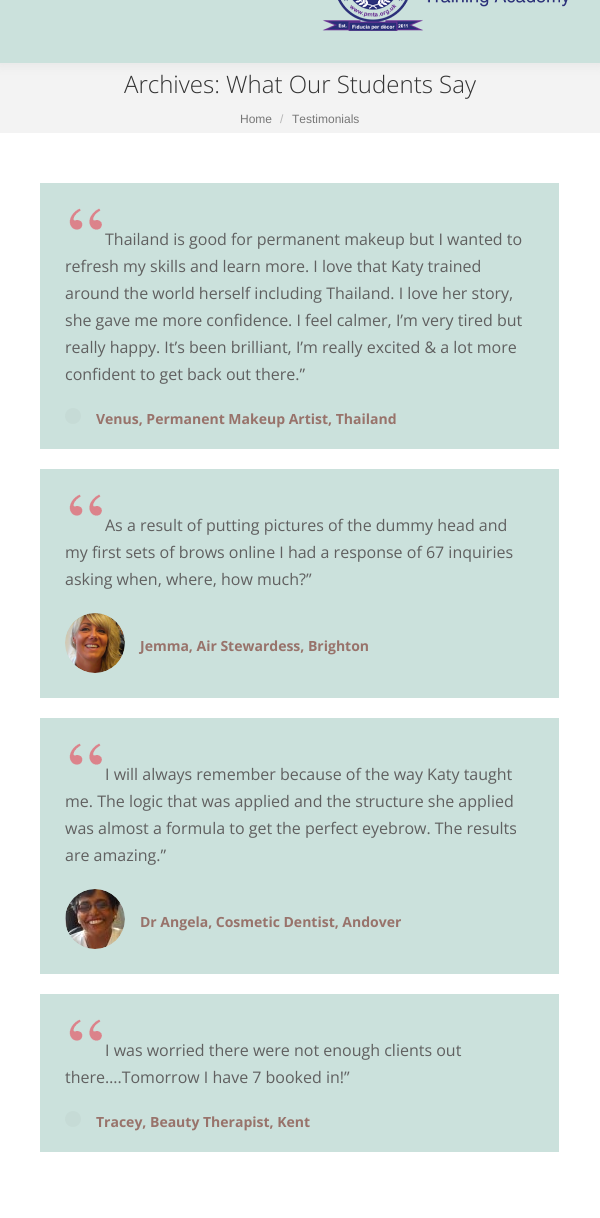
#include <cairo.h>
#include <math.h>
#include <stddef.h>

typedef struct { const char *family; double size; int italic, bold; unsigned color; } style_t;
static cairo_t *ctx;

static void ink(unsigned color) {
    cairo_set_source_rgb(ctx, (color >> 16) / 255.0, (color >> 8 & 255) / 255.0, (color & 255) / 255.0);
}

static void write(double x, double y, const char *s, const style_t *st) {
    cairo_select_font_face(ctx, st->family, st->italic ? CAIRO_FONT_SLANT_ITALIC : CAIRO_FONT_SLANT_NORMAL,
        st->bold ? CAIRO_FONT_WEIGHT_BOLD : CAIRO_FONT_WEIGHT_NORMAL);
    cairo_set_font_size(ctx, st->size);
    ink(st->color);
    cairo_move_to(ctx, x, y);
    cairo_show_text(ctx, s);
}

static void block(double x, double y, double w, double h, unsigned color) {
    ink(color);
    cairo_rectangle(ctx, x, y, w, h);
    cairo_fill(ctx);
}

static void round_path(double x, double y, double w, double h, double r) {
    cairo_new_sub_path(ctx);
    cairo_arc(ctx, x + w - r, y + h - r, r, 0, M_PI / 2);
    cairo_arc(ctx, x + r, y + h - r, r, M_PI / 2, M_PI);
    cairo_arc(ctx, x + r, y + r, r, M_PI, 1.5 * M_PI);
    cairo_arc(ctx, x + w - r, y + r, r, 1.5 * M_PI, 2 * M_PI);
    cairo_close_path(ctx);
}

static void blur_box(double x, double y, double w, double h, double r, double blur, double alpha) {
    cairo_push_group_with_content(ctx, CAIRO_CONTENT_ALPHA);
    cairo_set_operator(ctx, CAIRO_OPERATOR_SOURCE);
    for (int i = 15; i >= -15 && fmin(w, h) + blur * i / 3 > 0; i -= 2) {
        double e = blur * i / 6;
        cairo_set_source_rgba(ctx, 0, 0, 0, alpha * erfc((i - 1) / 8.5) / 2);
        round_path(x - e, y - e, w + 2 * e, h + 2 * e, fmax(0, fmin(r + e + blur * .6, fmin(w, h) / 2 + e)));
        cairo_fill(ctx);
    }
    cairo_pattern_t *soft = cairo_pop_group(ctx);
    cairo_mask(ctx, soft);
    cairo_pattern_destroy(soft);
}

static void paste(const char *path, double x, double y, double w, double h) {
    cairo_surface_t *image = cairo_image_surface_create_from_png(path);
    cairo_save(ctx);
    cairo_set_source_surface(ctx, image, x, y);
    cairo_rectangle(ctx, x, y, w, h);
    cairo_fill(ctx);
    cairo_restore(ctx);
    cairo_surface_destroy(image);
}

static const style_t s1 = {"Open Sans Light", 24, 0, 0, 0x333333};
static const style_t s2 = {"Liberation Sans", 12, 0, 0, 0x777777};
static const style_t s3 = {"Liberation Sans", 12, 0, 0, 0xb5b5b5};
static const style_t s4 = {"Open Sans", 16, 0, 0, 0x606060};
static const style_t s5 = {"Open Sans", 14, 0, 1, 0x98736b};

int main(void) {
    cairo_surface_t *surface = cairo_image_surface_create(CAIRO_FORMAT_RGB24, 600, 1218);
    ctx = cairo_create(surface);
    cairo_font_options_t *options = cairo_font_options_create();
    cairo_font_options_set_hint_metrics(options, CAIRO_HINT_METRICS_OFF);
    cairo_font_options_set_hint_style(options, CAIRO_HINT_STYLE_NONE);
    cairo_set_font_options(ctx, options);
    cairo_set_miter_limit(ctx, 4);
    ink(0xffffff);
    cairo_paint(ctx);
    block(0, 63, 600, 70, 0xf3f3f3);
    ink(0x000000);
    blur_box(-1, -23, 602, 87, 0, 7.5, 0.07);
    block(0, 0, 600, 63, 0xcbe1dc);
    paste("pic1.png", 322, 0, 246, 31);
    write(124, 93, "Archives: What Our Students Say", &s1);
    write(240, 123, "Home", &s2);
    write(280, 123, "/", &s3);
    write(292, 123, "Testimonials", &s2);
    block(40, 183, 519, 266, 0xcbe1dc);
    paste("pic2.png", 69, 208, 33, 22);
    write(105, 245, "Thailand is good for permanent makeup but I wanted to", &s4);
    write(65, 272, "refresh my skills and learn more. I love that Katy trained", &s4);
    write(65, 299, "around the world herself including Thailand. I love her story,", &s4);
    write(65, 326, "she gave me more confidence. I feel calmer, I’m very tired but", &s4);
    write(65, 353, "really happy. It’s been brilliant, I’m really excited & a lot more", &s4);
    write(65, 380, "confident to get back out there.”", &s4);
    ink(0xc6dbd6);
    cairo_new_path(ctx);
    cairo_arc(ctx, 73, 416, 8, 0, 2 * M_PI);
    cairo_fill(ctx);
    write(96, 424, "Venus, Permanent Makeup Artist, Thailand", &s5);
    block(40, 469, 519, 229, 0xcbe1dc);
    paste("pic2.png", 69, 494, 33, 22);
    write(105, 531, "As a result of putting pictures of the dummy head and", &s4);
    write(65, 558, "my first sets of brows online I had a response of 67 inquiries", &s4);
    write(65, 585, "asking when, where, how much?”", &s4);
    ink(0xc6dbd6);
    cairo_new_path(ctx);
    cairo_arc(ctx, 95, 643, 30, 0, 2 * M_PI);
    cairo_fill(ctx);
    paste("pic3.png", 65, 613, 60, 60);
    write(140, 651, "Jemma, Air Stewardess, Brighton", &s5);
    block(40, 718, 519, 256, 0xcbe1dc);
    paste("pic2.png", 69, 743, 33, 22);
    write(105, 780, "I will always remember because of the way Katy taught", &s4);
    write(65, 807, "me. The logic that was applied and the structure she applied", &s4);
    write(65, 834, "was almost a formula to get the perfect eyebrow. The results", &s4);
    write(65, 861, "are amazing.”", &s4);
    ink(0xc6dbd6);
    cairo_new_path(ctx);
    cairo_arc(ctx, 95, 919, 30, 0, 2 * M_PI);
    cairo_fill(ctx);
    paste("pic4.png", 65, 889, 60, 60);
    write(140, 927, "Dr Angela, Cosmetic Dentist, Andover", &s5);
    block(40, 994, 519, 158, 0xcbe1dc);
    paste("pic2.png", 69, 1019, 33, 22);
    write(105, 1056, "I was worried there were not enough clients out", &s4);
    write(65, 1083, "there….Tomorrow I have 7 booked in!”", &s4);
    ink(0xc6dbd6);
    cairo_new_path(ctx);
    cairo_arc(ctx, 73, 1119, 8, 0, 2 * M_PI);
    cairo_fill(ctx);
    write(96, 1127, "Tracey, Beauty Therapist, Kent", &s5);
    cairo_surface_write_to_png(surface, "screenshot.png");
    cairo_font_options_destroy(options);
    cairo_destroy(ctx);
    cairo_surface_destroy(surface);
    return 0;
}
